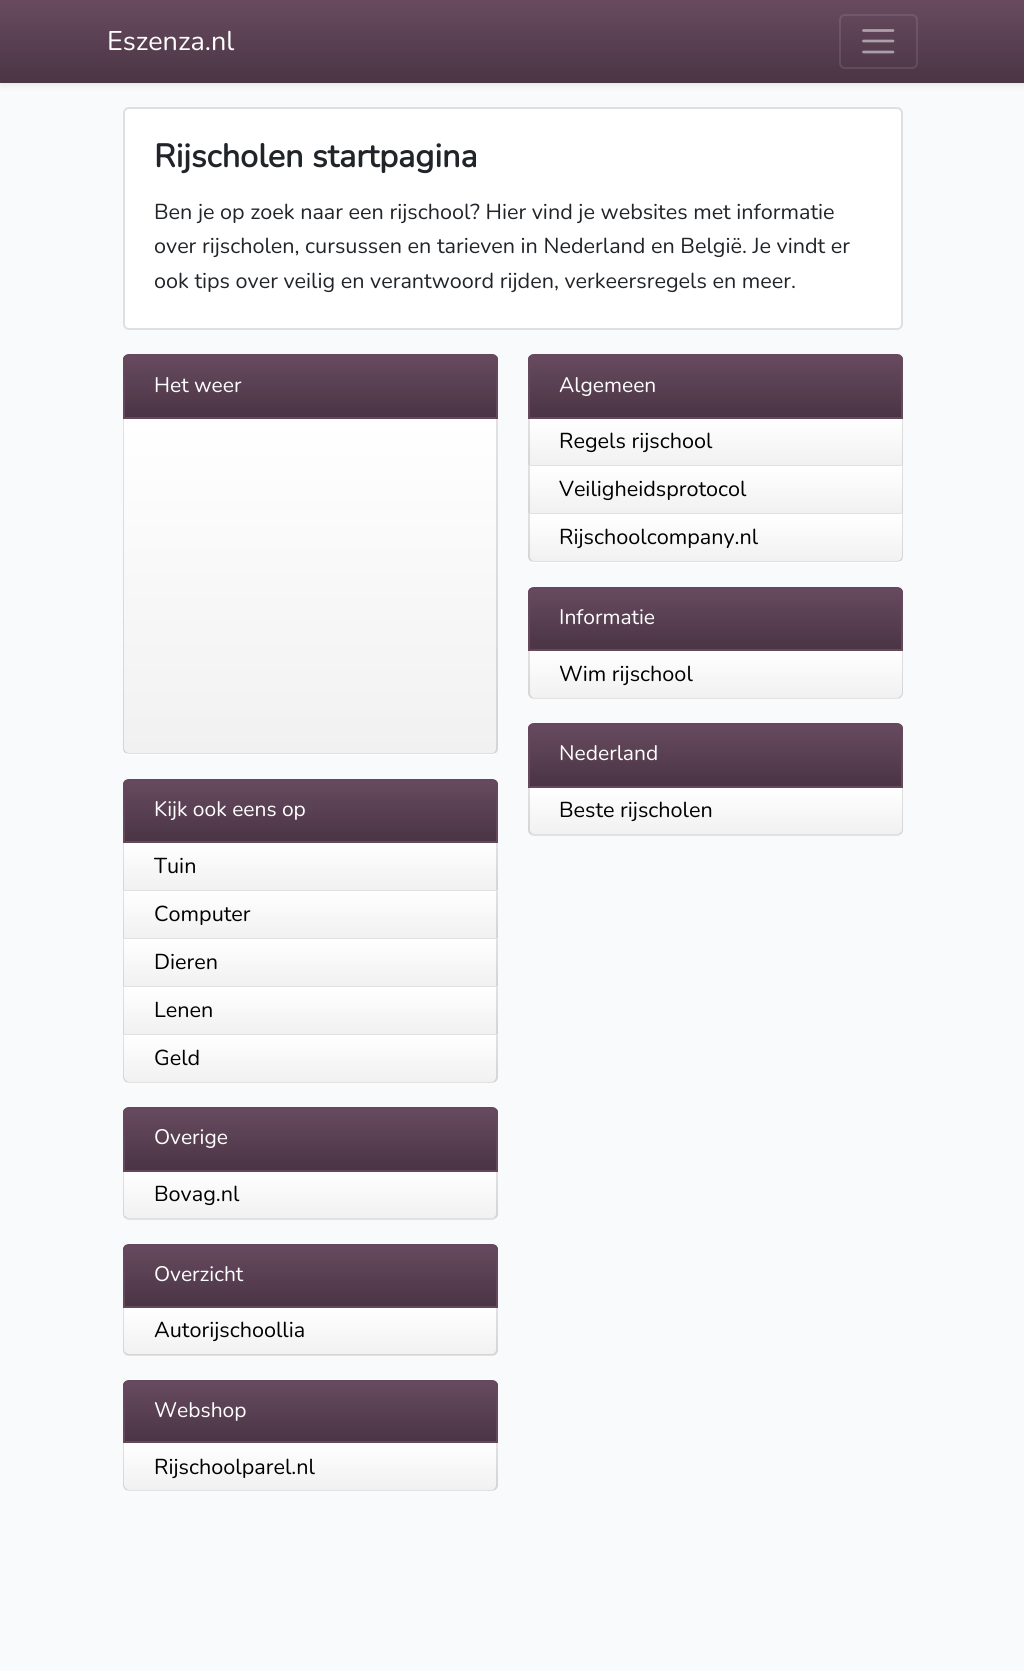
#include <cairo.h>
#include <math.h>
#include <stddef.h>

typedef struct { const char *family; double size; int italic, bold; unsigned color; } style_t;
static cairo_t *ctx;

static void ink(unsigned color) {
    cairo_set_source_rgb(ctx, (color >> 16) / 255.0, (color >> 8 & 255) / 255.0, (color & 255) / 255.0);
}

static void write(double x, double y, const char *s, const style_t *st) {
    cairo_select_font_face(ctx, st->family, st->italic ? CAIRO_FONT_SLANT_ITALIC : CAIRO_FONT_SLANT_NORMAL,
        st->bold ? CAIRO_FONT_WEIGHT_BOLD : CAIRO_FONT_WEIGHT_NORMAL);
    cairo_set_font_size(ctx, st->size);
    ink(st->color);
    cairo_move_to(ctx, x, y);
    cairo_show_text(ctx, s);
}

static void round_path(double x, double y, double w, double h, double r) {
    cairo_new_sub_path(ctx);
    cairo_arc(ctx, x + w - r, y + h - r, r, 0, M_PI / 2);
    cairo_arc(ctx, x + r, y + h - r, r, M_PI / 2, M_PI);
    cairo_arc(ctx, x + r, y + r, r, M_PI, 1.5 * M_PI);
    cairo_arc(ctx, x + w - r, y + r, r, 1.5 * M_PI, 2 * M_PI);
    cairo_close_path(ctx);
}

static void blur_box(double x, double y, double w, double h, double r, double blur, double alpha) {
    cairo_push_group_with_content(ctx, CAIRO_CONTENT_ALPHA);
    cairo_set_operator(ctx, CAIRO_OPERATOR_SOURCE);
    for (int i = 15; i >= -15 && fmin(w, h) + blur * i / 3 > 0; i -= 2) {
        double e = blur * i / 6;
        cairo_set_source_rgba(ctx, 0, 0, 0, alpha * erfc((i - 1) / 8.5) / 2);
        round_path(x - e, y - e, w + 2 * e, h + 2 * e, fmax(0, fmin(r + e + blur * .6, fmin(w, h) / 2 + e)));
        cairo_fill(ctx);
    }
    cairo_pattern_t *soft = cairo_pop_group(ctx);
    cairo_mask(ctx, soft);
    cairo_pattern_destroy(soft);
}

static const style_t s1 = {"Nunito ExtraLight", 27, 0, 0, 0xffffff};
static const style_t s2 = {"Nunito", 32.5, 0, 1, 0x212529};
static const style_t s3 = {"Nunito ExtraLight", 21.6, 0, 0, 0x212529};
static const style_t s4 = {"Nunito ExtraLight", 21, 0, 0, 0xffffff};
static const style_t s5 = {"Nunito ExtraLight", 21.6, 0, 0, 0x000000};

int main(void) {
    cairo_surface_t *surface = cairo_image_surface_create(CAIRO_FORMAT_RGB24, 1024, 1671);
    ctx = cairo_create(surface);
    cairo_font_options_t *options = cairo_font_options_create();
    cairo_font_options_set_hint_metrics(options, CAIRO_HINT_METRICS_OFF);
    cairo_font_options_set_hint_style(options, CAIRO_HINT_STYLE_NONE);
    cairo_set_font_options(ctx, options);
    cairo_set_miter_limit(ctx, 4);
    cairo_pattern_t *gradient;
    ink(0xf8fafc);
    cairo_paint(ctx);
    cairo_save(ctx);
    cairo_set_fill_rule(ctx, CAIRO_FILL_RULE_EVEN_ODD);
    cairo_new_path(ctx);
    cairo_move_to(ctx, 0, 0);
    cairo_line_to(ctx, 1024, 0);
    cairo_line_to(ctx, 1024, 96);
    cairo_line_to(ctx, 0, 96);
    cairo_close_path(ctx);
    cairo_move_to(ctx, 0, 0);
    cairo_line_to(ctx, 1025, 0);
    cairo_line_to(ctx, 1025, 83);
    cairo_line_to(ctx, 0, 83);
    cairo_close_path(ctx);
    cairo_clip(ctx);
    ink(0x000000);
    blur_box(0, 3, 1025, 83, 0, 3, 0.07);
    cairo_restore(ctx);
    gradient = cairo_pattern_create_linear(512, 0, 512, 83);
    cairo_pattern_add_color_stop_rgba(gradient, 0, 0.4, 0.282, 0.365, 0.99);
    cairo_pattern_add_color_stop_rgba(gradient, 1, 0.282, 0.2, 0.259, 0.99);
    cairo_set_source(ctx, gradient);
    cairo_pattern_destroy(gradient);
    cairo_rectangle(ctx, 0, 0, 1024, 83);
    cairo_fill(ctx);
    write(107, 50, "Eszenza.nl", &s1);
    round_path(840, 15, 77, 53, 5);
    cairo_set_source_rgba(ctx, 1, 1, 1, 0.1);
    cairo_stroke(ctx);
    cairo_new_path(ctx);
    cairo_move_to(ctx, 863.5, 30.5);
    cairo_line_to(ctx, 893, 30.5);
    cairo_move_to(ctx, 863.5, 41);
    cairo_line_to(ctx, 893, 41);
    cairo_move_to(ctx, 863.5, 52);
    cairo_line_to(ctx, 893, 52);
    cairo_set_source_rgba(ctx, 1, 1, 1, 0.5);
    cairo_set_line_width(ctx, 2.7);
    cairo_set_line_cap(ctx, CAIRO_LINE_CAP_ROUND);
    cairo_stroke(ctx);
    ink(0xffffff);
    round_path(124, 108, 778, 221, 5);
    cairo_fill_preserve(ctx);
    ink(0xdfdfdf);
    cairo_set_line_width(ctx, 2);
    cairo_set_line_cap(ctx, CAIRO_LINE_CAP_BUTT);
    cairo_stroke(ctx);
    write(154, 167, "Rijscholen startpagina", &s2);
    write(154, 219, "Ben je op zoek naar een rijschool? Hier vind je websites met informatie", &s3);
    write(154, 253, "over rijscholen, cursussen en tarieven in Nederland en België. Je vindt er", &s3);
    write(154, 288, "ook tips over veilig en verantwoord rijden, verkeersregels en meer.", &s3);
    cairo_save(ctx);
    cairo_new_path(ctx);
    cairo_move_to(ctx, 129, 354);
    cairo_line_to(ctx, 492, 354);
    cairo_curve_to(ctx, 495.5, 354, 498, 356.5, 498, 360);
    cairo_line_to(ctx, 498, 419);
    cairo_line_to(ctx, 123, 419);
    cairo_line_to(ctx, 123, 360);
    cairo_curve_to(ctx, 123, 356.5, 125.5, 354, 129, 354);
    cairo_close_path(ctx);
    cairo_clip(ctx);
    gradient = cairo_pattern_create_linear(311, 356, 311, 417);
    cairo_pattern_add_color_stop_rgba(gradient, 0, 0.404, 0.29, 0.373, 1);
    cairo_pattern_add_color_stop_rgba(gradient, 1, 0.29, 0.208, 0.267, 1);
    cairo_set_source(ctx, gradient);
    cairo_pattern_destroy(gradient);
    cairo_rectangle(ctx, 123, 356, 375, 61);
    cairo_fill(ctx);
    cairo_restore(ctx);
    cairo_new_path(ctx);
    cairo_move_to(ctx, 129, 355);
    cairo_line_to(ctx, 492, 355);
    cairo_curve_to(ctx, 495, 355, 497, 357, 497, 360);
    cairo_line_to(ctx, 497, 418);
    cairo_line_to(ctx, 124, 418);
    cairo_line_to(ctx, 124, 360);
    cairo_curve_to(ctx, 124, 357, 126, 355, 129, 355);
    cairo_close_path(ctx);
    ink(0x66485d);
    cairo_stroke(ctx);
    write(154, 392, "Het weer", &s4);
    cairo_save(ctx);
    cairo_new_path(ctx);
    cairo_move_to(ctx, 123, 419);
    cairo_line_to(ctx, 498, 419);
    cairo_line_to(ctx, 498, 749);
    cairo_curve_to(ctx, 498, 752.5, 495.5, 755, 492, 755);
    cairo_line_to(ctx, 129, 755);
    cairo_curve_to(ctx, 125.5, 755, 123, 752.5, 123, 749);
    cairo_close_path(ctx);
    cairo_clip(ctx);
    gradient = cairo_pattern_create_linear(311, 419, 311, 753);
    cairo_pattern_add_color_stop_rgba(gradient, 0, 1, 1, 1, 1);
    cairo_pattern_add_color_stop_rgba(gradient, 1, 0.945, 0.945, 0.945, 1);
    cairo_set_source(ctx, gradient);
    cairo_pattern_destroy(gradient);
    cairo_rectangle(ctx, 123, 419, 375, 334);
    cairo_fill(ctx);
    gradient = cairo_pattern_create_linear(311, 753, 311, 1088);
    cairo_pattern_add_color_stop_rgba(gradient, 0, 1, 1, 1, 1);
    cairo_pattern_add_color_stop_rgba(gradient, 1, 0.945, 0.945, 0.945, 1);
    cairo_set_source(ctx, gradient);
    cairo_pattern_destroy(gradient);
    cairo_rectangle(ctx, 123, 753, 375, 2);
    cairo_fill(ctx);
    cairo_restore(ctx);
    cairo_set_source_rgba(ctx, 0, 0, 0, 0.12);
    cairo_set_fill_rule(ctx, CAIRO_FILL_RULE_EVEN_ODD);
    cairo_new_path(ctx);
    cairo_move_to(ctx, 123, 418);
    cairo_line_to(ctx, 498, 418);
    cairo_line_to(ctx, 498, 748);
    cairo_curve_to(ctx, 498, 752, 495, 754, 492, 754);
    cairo_line_to(ctx, 129, 754);
    cairo_curve_to(ctx, 126, 754, 123, 752, 123, 748);
    cairo_close_path(ctx);
    cairo_move_to(ctx, 124, 418);
    cairo_line_to(ctx, 496, 418);
    cairo_line_to(ctx, 496, 748);
    cairo_curve_to(ctx, 496, 751, 494, 753, 492, 753);
    cairo_line_to(ctx, 129, 753);
    cairo_curve_to(ctx, 127, 753, 124, 751, 124, 748);
    cairo_close_path(ctx);
    cairo_fill(ctx);
    cairo_save(ctx);
    cairo_set_fill_rule(ctx, CAIRO_FILL_RULE_WINDING);
    cairo_new_path(ctx);
    cairo_move_to(ctx, 129, 779);
    cairo_line_to(ctx, 492, 779);
    cairo_curve_to(ctx, 495.5, 779, 498, 781.5, 498, 785);
    cairo_line_to(ctx, 498, 843);
    cairo_line_to(ctx, 123, 843);
    cairo_line_to(ctx, 123, 785);
    cairo_curve_to(ctx, 123, 781.5, 125.5, 779, 129, 779);
    cairo_close_path(ctx);
    cairo_clip(ctx);
    gradient = cairo_pattern_create_linear(311, 780, 311, 842);
    cairo_pattern_add_color_stop_rgba(gradient, 0, 0.404, 0.29, 0.373, 1);
    cairo_pattern_add_color_stop_rgba(gradient, 1, 0.29, 0.208, 0.267, 1);
    cairo_set_source(ctx, gradient);
    cairo_pattern_destroy(gradient);
    cairo_rectangle(ctx, 123, 780, 375, 61);
    cairo_fill(ctx);
    cairo_restore(ctx);
    cairo_new_path(ctx);
    cairo_move_to(ctx, 129, 780);
    cairo_line_to(ctx, 492, 780);
    cairo_curve_to(ctx, 495, 780, 497, 782, 497, 785);
    cairo_line_to(ctx, 497, 842);
    cairo_line_to(ctx, 124, 842);
    cairo_line_to(ctx, 124, 785);
    cairo_curve_to(ctx, 124, 782, 126, 780, 129, 780);
    cairo_close_path(ctx);
    ink(0x66485d);
    cairo_stroke(ctx);
    write(154, 816, "Kijk ook eens op", &s4);
    gradient = cairo_pattern_create_linear(311, 843, 311, 890);
    cairo_pattern_add_color_stop_rgba(gradient, 0, 1, 1, 1, 1);
    cairo_pattern_add_color_stop_rgba(gradient, 1, 0.945, 0.945, 0.945, 1);
    cairo_set_source(ctx, gradient);
    cairo_pattern_destroy(gradient);
    cairo_rectangle(ctx, 123, 843, 375, 47);
    cairo_fill(ctx);
    gradient = cairo_pattern_create_linear(311, 890, 311, 936);
    cairo_pattern_add_color_stop_rgba(gradient, 0, 1, 1, 1, 1);
    cairo_pattern_add_color_stop_rgba(gradient, 1, 0.945, 0.945, 0.945, 1);
    cairo_set_source(ctx, gradient);
    cairo_pattern_destroy(gradient);
    cairo_rectangle(ctx, 123, 890, 375, 1);
    cairo_fill(ctx);
    cairo_set_source_rgba(ctx, 0, 0, 0, 0.12);
    cairo_set_fill_rule(ctx, CAIRO_FILL_RULE_WINDING);
    cairo_new_path(ctx);
    cairo_move_to(ctx, 498, 843);
    cairo_line_to(ctx, 498, 891);
    cairo_line_to(ctx, 496, 890);
    cairo_line_to(ctx, 496, 843);
    cairo_close_path(ctx);
    cairo_fill(ctx);
    cairo_new_path(ctx);
    cairo_move_to(ctx, 498, 891);
    cairo_line_to(ctx, 123, 891);
    cairo_line_to(ctx, 124, 890);
    cairo_line_to(ctx, 496, 890);
    cairo_close_path(ctx);
    cairo_fill(ctx);
    cairo_new_path(ctx);
    cairo_move_to(ctx, 123, 891);
    cairo_line_to(ctx, 123, 843);
    cairo_line_to(ctx, 124, 843);
    cairo_line_to(ctx, 124, 890);
    cairo_close_path(ctx);
    cairo_fill(ctx);
    write(154, 873, "Tuin", &s5);
    gradient = cairo_pattern_create_linear(311, 891, 311, 938);
    cairo_pattern_add_color_stop_rgba(gradient, 0, 1, 1, 1, 1);
    cairo_pattern_add_color_stop_rgba(gradient, 1, 0.945, 0.945, 0.945, 1);
    cairo_set_source(ctx, gradient);
    cairo_pattern_destroy(gradient);
    cairo_rectangle(ctx, 123, 891, 375, 47);
    cairo_fill(ctx);
    gradient = cairo_pattern_create_linear(311, 938, 311, 984);
    cairo_pattern_add_color_stop_rgba(gradient, 0, 1, 1, 1, 1);
    cairo_pattern_add_color_stop_rgba(gradient, 1, 0.945, 0.945, 0.945, 1);
    cairo_set_source(ctx, gradient);
    cairo_pattern_destroy(gradient);
    cairo_rectangle(ctx, 123, 938, 375, 1);
    cairo_fill(ctx);
    cairo_set_source_rgba(ctx, 0, 0, 0, 0.12);
    cairo_new_path(ctx);
    cairo_move_to(ctx, 498, 891);
    cairo_line_to(ctx, 498, 939);
    cairo_line_to(ctx, 496, 938);
    cairo_line_to(ctx, 496, 891);
    cairo_close_path(ctx);
    cairo_fill(ctx);
    cairo_new_path(ctx);
    cairo_move_to(ctx, 498, 939);
    cairo_line_to(ctx, 123, 939);
    cairo_line_to(ctx, 124, 938);
    cairo_line_to(ctx, 496, 938);
    cairo_close_path(ctx);
    cairo_fill(ctx);
    cairo_new_path(ctx);
    cairo_move_to(ctx, 123, 939);
    cairo_line_to(ctx, 123, 891);
    cairo_line_to(ctx, 124, 891);
    cairo_line_to(ctx, 124, 938);
    cairo_close_path(ctx);
    cairo_fill(ctx);
    write(154, 921, "Computer", &s5);
    gradient = cairo_pattern_create_linear(311, 939, 311, 986);
    cairo_pattern_add_color_stop_rgba(gradient, 0, 1, 1, 1, 1);
    cairo_pattern_add_color_stop_rgba(gradient, 1, 0.945, 0.945, 0.945, 1);
    cairo_set_source(ctx, gradient);
    cairo_pattern_destroy(gradient);
    cairo_rectangle(ctx, 123, 939, 375, 47);
    cairo_fill(ctx);
    gradient = cairo_pattern_create_linear(311, 986, 311, 1032);
    cairo_pattern_add_color_stop_rgba(gradient, 0, 1, 1, 1, 1);
    cairo_pattern_add_color_stop_rgba(gradient, 1, 0.945, 0.945, 0.945, 1);
    cairo_set_source(ctx, gradient);
    cairo_pattern_destroy(gradient);
    cairo_rectangle(ctx, 123, 986, 375, 1);
    cairo_fill(ctx);
    cairo_set_source_rgba(ctx, 0, 0, 0, 0.12);
    cairo_new_path(ctx);
    cairo_move_to(ctx, 498, 939);
    cairo_line_to(ctx, 498, 987);
    cairo_line_to(ctx, 496, 986);
    cairo_line_to(ctx, 496, 939);
    cairo_close_path(ctx);
    cairo_fill(ctx);
    cairo_new_path(ctx);
    cairo_move_to(ctx, 498, 987);
    cairo_line_to(ctx, 123, 987);
    cairo_line_to(ctx, 124, 986);
    cairo_line_to(ctx, 496, 986);
    cairo_close_path(ctx);
    cairo_fill(ctx);
    cairo_new_path(ctx);
    cairo_move_to(ctx, 123, 987);
    cairo_line_to(ctx, 123, 939);
    cairo_line_to(ctx, 124, 939);
    cairo_line_to(ctx, 124, 986);
    cairo_close_path(ctx);
    cairo_fill(ctx);
    write(154, 969, "Dieren", &s5);
    gradient = cairo_pattern_create_linear(311, 987, 311, 1034);
    cairo_pattern_add_color_stop_rgba(gradient, 0, 1, 1, 1, 1);
    cairo_pattern_add_color_stop_rgba(gradient, 1, 0.945, 0.945, 0.945, 1);
    cairo_set_source(ctx, gradient);
    cairo_pattern_destroy(gradient);
    cairo_rectangle(ctx, 123, 987, 375, 47);
    cairo_fill(ctx);
    gradient = cairo_pattern_create_linear(311, 1034, 311, 1080);
    cairo_pattern_add_color_stop_rgba(gradient, 0, 1, 1, 1, 1);
    cairo_pattern_add_color_stop_rgba(gradient, 1, 0.945, 0.945, 0.945, 1);
    cairo_set_source(ctx, gradient);
    cairo_pattern_destroy(gradient);
    cairo_rectangle(ctx, 123, 1034, 375, 1);
    cairo_fill(ctx);
    cairo_set_source_rgba(ctx, 0, 0, 0, 0.12);
    cairo_new_path(ctx);
    cairo_move_to(ctx, 498, 987);
    cairo_line_to(ctx, 498, 1035);
    cairo_line_to(ctx, 496, 1034);
    cairo_line_to(ctx, 496, 987);
    cairo_close_path(ctx);
    cairo_fill(ctx);
    cairo_new_path(ctx);
    cairo_move_to(ctx, 498, 1035);
    cairo_line_to(ctx, 123, 1035);
    cairo_line_to(ctx, 124, 1034);
    cairo_line_to(ctx, 496, 1034);
    cairo_close_path(ctx);
    cairo_fill(ctx);
    cairo_new_path(ctx);
    cairo_move_to(ctx, 123, 1035);
    cairo_line_to(ctx, 123, 987);
    cairo_line_to(ctx, 124, 987);
    cairo_line_to(ctx, 124, 1034);
    cairo_close_path(ctx);
    cairo_fill(ctx);
    write(154, 1017, "Lenen", &s5);
    cairo_save(ctx);
    cairo_new_path(ctx);
    cairo_move_to(ctx, 123, 1035);
    cairo_line_to(ctx, 498, 1035);
    cairo_line_to(ctx, 498, 1077);
    cairo_curve_to(ctx, 498, 1080.5, 495.5, 1083, 492, 1083);
    cairo_line_to(ctx, 129, 1083);
    cairo_curve_to(ctx, 125.5, 1083, 123, 1080.5, 123, 1077);
    cairo_close_path(ctx);
    cairo_clip(ctx);
    gradient = cairo_pattern_create_linear(311, 1035, 311, 1082);
    cairo_pattern_add_color_stop_rgba(gradient, 0, 1, 1, 1, 1);
    cairo_pattern_add_color_stop_rgba(gradient, 1, 0.945, 0.945, 0.945, 1);
    cairo_set_source(ctx, gradient);
    cairo_pattern_destroy(gradient);
    cairo_rectangle(ctx, 123, 1035, 375, 47);
    cairo_fill(ctx);
    gradient = cairo_pattern_create_linear(311, 1082, 311, 1128);
    cairo_pattern_add_color_stop_rgba(gradient, 0, 1, 1, 1, 1);
    cairo_pattern_add_color_stop_rgba(gradient, 1, 0.945, 0.945, 0.945, 1);
    cairo_set_source(ctx, gradient);
    cairo_pattern_destroy(gradient);
    cairo_rectangle(ctx, 123, 1082, 375, 1);
    cairo_fill(ctx);
    cairo_restore(ctx);
    cairo_set_source_rgba(ctx, 0, 0, 0, 0.12);
    cairo_set_fill_rule(ctx, CAIRO_FILL_RULE_EVEN_ODD);
    cairo_new_path(ctx);
    cairo_move_to(ctx, 123, 1035);
    cairo_line_to(ctx, 498, 1035);
    cairo_line_to(ctx, 498, 1077);
    cairo_curve_to(ctx, 498, 1080, 495, 1083, 492, 1083);
    cairo_line_to(ctx, 129, 1083);
    cairo_curve_to(ctx, 126, 1083, 123, 1080, 123, 1077);
    cairo_close_path(ctx);
    cairo_move_to(ctx, 124, 1035);
    cairo_line_to(ctx, 496, 1035);
    cairo_line_to(ctx, 496, 1077);
    cairo_curve_to(ctx, 496, 1079, 494, 1082, 492, 1082);
    cairo_line_to(ctx, 129, 1082);
    cairo_curve_to(ctx, 127, 1082, 124, 1079, 124, 1077);
    cairo_close_path(ctx);
    cairo_fill(ctx);
    write(154, 1065, "Geld", &s5);
    cairo_save(ctx);
    cairo_set_fill_rule(ctx, CAIRO_FILL_RULE_WINDING);
    cairo_new_path(ctx);
    cairo_move_to(ctx, 534, 354);
    cairo_line_to(ctx, 897, 354);
    cairo_curve_to(ctx, 900.5, 354, 903, 356.5, 903, 360);
    cairo_line_to(ctx, 903, 419);
    cairo_line_to(ctx, 528, 419);
    cairo_line_to(ctx, 528, 360);
    cairo_curve_to(ctx, 528, 356.5, 530.5, 354, 534, 354);
    cairo_close_path(ctx);
    cairo_clip(ctx);
    gradient = cairo_pattern_create_linear(716, 356, 716, 417);
    cairo_pattern_add_color_stop_rgba(gradient, 0, 0.404, 0.29, 0.373, 1);
    cairo_pattern_add_color_stop_rgba(gradient, 1, 0.29, 0.208, 0.267, 1);
    cairo_set_source(ctx, gradient);
    cairo_pattern_destroy(gradient);
    cairo_rectangle(ctx, 528, 356, 375, 61);
    cairo_fill(ctx);
    cairo_restore(ctx);
    gradient = cairo_pattern_create_linear(716, 419, 716, 465);
    cairo_pattern_add_color_stop_rgba(gradient, 0, 1, 1, 1, 1);
    cairo_pattern_add_color_stop_rgba(gradient, 1, 0.945, 0.945, 0.945, 1);
    cairo_set_source(ctx, gradient);
    cairo_pattern_destroy(gradient);
    cairo_rectangle(ctx, 528, 419, 375, 46);
    cairo_fill(ctx);
    gradient = cairo_pattern_create_linear(716, 465, 716, 512);
    cairo_pattern_add_color_stop_rgba(gradient, 0, 1, 1, 1, 1);
    cairo_pattern_add_color_stop_rgba(gradient, 1, 0.945, 0.945, 0.945, 1);
    cairo_set_source(ctx, gradient);
    cairo_pattern_destroy(gradient);
    cairo_rectangle(ctx, 528, 465, 375, 2);
    cairo_fill(ctx);
    cairo_set_source_rgba(ctx, 0, 0, 0, 0.12);
    cairo_set_fill_rule(ctx, CAIRO_FILL_RULE_WINDING);
    cairo_new_path(ctx);
    cairo_move_to(ctx, 903, 418);
    cairo_line_to(ctx, 903, 466);
    cairo_line_to(ctx, 902, 465);
    cairo_line_to(ctx, 902, 418);
    cairo_close_path(ctx);
    cairo_fill(ctx);
    cairo_new_path(ctx);
    cairo_move_to(ctx, 903, 466);
    cairo_line_to(ctx, 528, 466);
    cairo_line_to(ctx, 530, 465);
    cairo_line_to(ctx, 902, 465);
    cairo_close_path(ctx);
    cairo_fill(ctx);
    cairo_new_path(ctx);
    cairo_move_to(ctx, 528, 466);
    cairo_line_to(ctx, 528, 418);
    cairo_line_to(ctx, 530, 418);
    cairo_line_to(ctx, 530, 465);
    cairo_close_path(ctx);
    cairo_fill(ctx);
    cairo_new_path(ctx);
    cairo_move_to(ctx, 534, 355);
    cairo_line_to(ctx, 897, 355);
    cairo_curve_to(ctx, 900, 355, 902, 357, 902, 360);
    cairo_line_to(ctx, 902, 418);
    cairo_line_to(ctx, 529, 418);
    cairo_line_to(ctx, 529, 360);
    cairo_curve_to(ctx, 529, 357, 531, 355, 534, 355);
    cairo_close_path(ctx);
    ink(0x66485d);
    cairo_stroke(ctx);
    write(559, 392, "Algemeen", &s4);
    write(559, 448, "Regels rijschool", &s5);
    gradient = cairo_pattern_create_linear(716, 467, 716, 513);
    cairo_pattern_add_color_stop_rgba(gradient, 0, 1, 1, 1, 1);
    cairo_pattern_add_color_stop_rgba(gradient, 1, 0.945, 0.945, 0.945, 1);
    cairo_set_source(ctx, gradient);
    cairo_pattern_destroy(gradient);
    cairo_rectangle(ctx, 528, 467, 375, 46);
    cairo_fill(ctx);
    gradient = cairo_pattern_create_linear(716, 513, 716, 560);
    cairo_pattern_add_color_stop_rgba(gradient, 0, 1, 1, 1, 1);
    cairo_pattern_add_color_stop_rgba(gradient, 1, 0.945, 0.945, 0.945, 1);
    cairo_set_source(ctx, gradient);
    cairo_pattern_destroy(gradient);
    cairo_rectangle(ctx, 528, 513, 375, 2);
    cairo_fill(ctx);
    cairo_set_source_rgba(ctx, 0, 0, 0, 0.12);
    cairo_new_path(ctx);
    cairo_move_to(ctx, 903, 466);
    cairo_line_to(ctx, 903, 514);
    cairo_line_to(ctx, 902, 513);
    cairo_line_to(ctx, 902, 466);
    cairo_close_path(ctx);
    cairo_fill(ctx);
    cairo_new_path(ctx);
    cairo_move_to(ctx, 903, 514);
    cairo_line_to(ctx, 528, 514);
    cairo_line_to(ctx, 530, 513);
    cairo_line_to(ctx, 902, 513);
    cairo_close_path(ctx);
    cairo_fill(ctx);
    cairo_new_path(ctx);
    cairo_move_to(ctx, 528, 514);
    cairo_line_to(ctx, 528, 466);
    cairo_line_to(ctx, 530, 466);
    cairo_line_to(ctx, 530, 513);
    cairo_close_path(ctx);
    cairo_fill(ctx);
    write(559, 496, "Veiligheidsprotocol", &s5);
    cairo_save(ctx);
    cairo_new_path(ctx);
    cairo_move_to(ctx, 528, 515);
    cairo_line_to(ctx, 903, 515);
    cairo_line_to(ctx, 903, 557);
    cairo_curve_to(ctx, 903, 560.5, 900.5, 563, 897, 563);
    cairo_line_to(ctx, 534, 563);
    cairo_curve_to(ctx, 530.5, 563, 528, 560.5, 528, 557);
    cairo_close_path(ctx);
    cairo_clip(ctx);
    gradient = cairo_pattern_create_linear(716, 515, 716, 561);
    cairo_pattern_add_color_stop_rgba(gradient, 0, 1, 1, 1, 1);
    cairo_pattern_add_color_stop_rgba(gradient, 1, 0.945, 0.945, 0.945, 1);
    cairo_set_source(ctx, gradient);
    cairo_pattern_destroy(gradient);
    cairo_rectangle(ctx, 528, 515, 375, 46);
    cairo_fill(ctx);
    gradient = cairo_pattern_create_linear(716, 561, 716, 608);
    cairo_pattern_add_color_stop_rgba(gradient, 0, 1, 1, 1, 1);
    cairo_pattern_add_color_stop_rgba(gradient, 1, 0.945, 0.945, 0.945, 1);
    cairo_set_source(ctx, gradient);
    cairo_pattern_destroy(gradient);
    cairo_rectangle(ctx, 528, 561, 375, 2);
    cairo_fill(ctx);
    cairo_restore(ctx);
    cairo_set_source_rgba(ctx, 0, 0, 0, 0.12);
    cairo_set_fill_rule(ctx, CAIRO_FILL_RULE_EVEN_ODD);
    cairo_new_path(ctx);
    cairo_move_to(ctx, 528, 514);
    cairo_line_to(ctx, 903, 514);
    cairo_line_to(ctx, 903, 556);
    cairo_curve_to(ctx, 903, 560, 900, 562, 897, 562);
    cairo_line_to(ctx, 534, 562);
    cairo_curve_to(ctx, 531, 562, 528, 560, 528, 556);
    cairo_close_path(ctx);
    cairo_move_to(ctx, 530, 514);
    cairo_line_to(ctx, 902, 514);
    cairo_line_to(ctx, 902, 556);
    cairo_curve_to(ctx, 902, 559, 899, 561, 897, 561);
    cairo_line_to(ctx, 534, 561);
    cairo_curve_to(ctx, 532, 561, 530, 559, 530, 556);
    cairo_close_path(ctx);
    cairo_fill(ctx);
    write(559, 544, "Rijschoolcompany.nl", &s5);
    cairo_save(ctx);
    cairo_set_fill_rule(ctx, CAIRO_FILL_RULE_WINDING);
    cairo_new_path(ctx);
    cairo_move_to(ctx, 534, 587);
    cairo_line_to(ctx, 897, 587);
    cairo_curve_to(ctx, 900.5, 587, 903, 589.5, 903, 593);
    cairo_line_to(ctx, 903, 651);
    cairo_line_to(ctx, 528, 651);
    cairo_line_to(ctx, 528, 593);
    cairo_curve_to(ctx, 528, 589.5, 530.5, 587, 534, 587);
    cairo_close_path(ctx);
    cairo_clip(ctx);
    gradient = cairo_pattern_create_linear(716, 588, 716, 650);
    cairo_pattern_add_color_stop_rgba(gradient, 0, 0.404, 0.29, 0.373, 1);
    cairo_pattern_add_color_stop_rgba(gradient, 1, 0.29, 0.208, 0.267, 1);
    cairo_set_source(ctx, gradient);
    cairo_pattern_destroy(gradient);
    cairo_rectangle(ctx, 528, 588, 375, 61);
    cairo_fill(ctx);
    cairo_restore(ctx);
    cairo_new_path(ctx);
    cairo_move_to(ctx, 534, 588);
    cairo_line_to(ctx, 897, 588);
    cairo_curve_to(ctx, 900, 588, 902, 590, 902, 593);
    cairo_line_to(ctx, 902, 650);
    cairo_line_to(ctx, 529, 650);
    cairo_line_to(ctx, 529, 593);
    cairo_curve_to(ctx, 529, 590, 531, 588, 534, 588);
    cairo_close_path(ctx);
    ink(0x66485d);
    cairo_stroke(ctx);
    write(559, 624, "Informatie", &s4);
    cairo_save(ctx);
    cairo_set_fill_rule(ctx, CAIRO_FILL_RULE_WINDING);
    cairo_new_path(ctx);
    cairo_move_to(ctx, 528, 651);
    cairo_line_to(ctx, 903, 651);
    cairo_line_to(ctx, 903, 693);
    cairo_curve_to(ctx, 903, 696.5, 900.5, 699, 897, 699);
    cairo_line_to(ctx, 534, 699);
    cairo_curve_to(ctx, 530.5, 699, 528, 696.5, 528, 693);
    cairo_close_path(ctx);
    cairo_clip(ctx);
    gradient = cairo_pattern_create_linear(716, 651, 716, 698);
    cairo_pattern_add_color_stop_rgba(gradient, 0, 1, 1, 1, 1);
    cairo_pattern_add_color_stop_rgba(gradient, 1, 0.945, 0.945, 0.945, 1);
    cairo_set_source(ctx, gradient);
    cairo_pattern_destroy(gradient);
    cairo_rectangle(ctx, 528, 651, 375, 47);
    cairo_fill(ctx);
    gradient = cairo_pattern_create_linear(716, 698, 716, 744);
    cairo_pattern_add_color_stop_rgba(gradient, 0, 1, 1, 1, 1);
    cairo_pattern_add_color_stop_rgba(gradient, 1, 0.945, 0.945, 0.945, 1);
    cairo_set_source(ctx, gradient);
    cairo_pattern_destroy(gradient);
    cairo_rectangle(ctx, 528, 698, 375, 1);
    cairo_fill(ctx);
    cairo_restore(ctx);
    cairo_set_source_rgba(ctx, 0, 0, 0, 0.12);
    cairo_new_path(ctx);
    cairo_move_to(ctx, 528, 651);
    cairo_line_to(ctx, 903, 651);
    cairo_line_to(ctx, 903, 693);
    cairo_curve_to(ctx, 903, 696, 900, 699, 897, 699);
    cairo_line_to(ctx, 534, 699);
    cairo_curve_to(ctx, 531, 699, 528, 696, 528, 693);
    cairo_close_path(ctx);
    cairo_move_to(ctx, 530, 651);
    cairo_line_to(ctx, 902, 651);
    cairo_line_to(ctx, 902, 693);
    cairo_curve_to(ctx, 902, 695, 899, 698, 897, 698);
    cairo_line_to(ctx, 534, 698);
    cairo_curve_to(ctx, 532, 698, 530, 695, 530, 693);
    cairo_close_path(ctx);
    cairo_fill(ctx);
    write(559, 681, "Wim rijschool", &s5);
    cairo_save(ctx);
    cairo_set_fill_rule(ctx, CAIRO_FILL_RULE_WINDING);
    cairo_new_path(ctx);
    cairo_move_to(ctx, 534, 723);
    cairo_line_to(ctx, 897, 723);
    cairo_curve_to(ctx, 900.5, 723, 903, 725.5, 903, 729);
    cairo_line_to(ctx, 903, 788);
    cairo_line_to(ctx, 528, 788);
    cairo_line_to(ctx, 528, 729);
    cairo_curve_to(ctx, 528, 725.5, 530.5, 723, 534, 723);
    cairo_close_path(ctx);
    cairo_clip(ctx);
    gradient = cairo_pattern_create_linear(716, 725, 716, 786);
    cairo_pattern_add_color_stop_rgba(gradient, 0, 0.404, 0.29, 0.373, 1);
    cairo_pattern_add_color_stop_rgba(gradient, 1, 0.29, 0.208, 0.267, 1);
    cairo_set_source(ctx, gradient);
    cairo_pattern_destroy(gradient);
    cairo_rectangle(ctx, 528, 725, 375, 61);
    cairo_fill(ctx);
    cairo_restore(ctx);
    cairo_new_path(ctx);
    cairo_move_to(ctx, 534, 724);
    cairo_line_to(ctx, 897, 724);
    cairo_curve_to(ctx, 900, 724, 902, 726, 902, 729);
    cairo_line_to(ctx, 902, 787);
    cairo_line_to(ctx, 529, 787);
    cairo_line_to(ctx, 529, 729);
    cairo_curve_to(ctx, 529, 726, 531, 724, 534, 724);
    cairo_close_path(ctx);
    ink(0x66485d);
    cairo_stroke(ctx);
    write(559, 760, "Nederland", &s4);
    cairo_save(ctx);
    cairo_set_fill_rule(ctx, CAIRO_FILL_RULE_WINDING);
    cairo_new_path(ctx);
    cairo_move_to(ctx, 528, 788);
    cairo_line_to(ctx, 903, 788);
    cairo_line_to(ctx, 903, 830);
    cairo_curve_to(ctx, 903, 833.5, 900.5, 836, 897, 836);
    cairo_line_to(ctx, 534, 836);
    cairo_curve_to(ctx, 530.5, 836, 528, 833.5, 528, 830);
    cairo_close_path(ctx);
    cairo_clip(ctx);
    gradient = cairo_pattern_create_linear(716, 788, 716, 834);
    cairo_pattern_add_color_stop_rgba(gradient, 0, 1, 1, 1, 1);
    cairo_pattern_add_color_stop_rgba(gradient, 1, 0.945, 0.945, 0.945, 1);
    cairo_set_source(ctx, gradient);
    cairo_pattern_destroy(gradient);
    cairo_rectangle(ctx, 528, 788, 375, 46);
    cairo_fill(ctx);
    gradient = cairo_pattern_create_linear(716, 834, 716, 881);
    cairo_pattern_add_color_stop_rgba(gradient, 0, 1, 1, 1, 1);
    cairo_pattern_add_color_stop_rgba(gradient, 1, 0.945, 0.945, 0.945, 1);
    cairo_set_source(ctx, gradient);
    cairo_pattern_destroy(gradient);
    cairo_rectangle(ctx, 528, 834, 375, 2);
    cairo_fill(ctx);
    cairo_restore(ctx);
    cairo_set_source_rgba(ctx, 0, 0, 0, 0.12);
    cairo_new_path(ctx);
    cairo_move_to(ctx, 528, 788);
    cairo_line_to(ctx, 903, 788);
    cairo_line_to(ctx, 903, 830);
    cairo_curve_to(ctx, 903, 833, 900, 836, 897, 836);
    cairo_line_to(ctx, 534, 836);
    cairo_curve_to(ctx, 531, 836, 528, 833, 528, 830);
    cairo_close_path(ctx);
    cairo_move_to(ctx, 530, 788);
    cairo_line_to(ctx, 902, 788);
    cairo_line_to(ctx, 902, 830);
    cairo_curve_to(ctx, 902, 832, 899, 834, 897, 834);
    cairo_line_to(ctx, 534, 834);
    cairo_curve_to(ctx, 532, 834, 530, 832, 530, 830);
    cairo_close_path(ctx);
    cairo_fill(ctx);
    write(559, 817, "Beste rijscholen", &s5);
    cairo_save(ctx);
    cairo_set_fill_rule(ctx, CAIRO_FILL_RULE_WINDING);
    cairo_new_path(ctx);
    cairo_move_to(ctx, 129, 1107);
    cairo_line_to(ctx, 492, 1107);
    cairo_curve_to(ctx, 495.5, 1107, 498, 1109.5, 498, 1113);
    cairo_line_to(ctx, 498, 1172);
    cairo_line_to(ctx, 123, 1172);
    cairo_line_to(ctx, 123, 1113);
    cairo_curve_to(ctx, 123, 1109.5, 125.5, 1107, 129, 1107);
    cairo_close_path(ctx);
    cairo_clip(ctx);
    gradient = cairo_pattern_create_linear(311, 1109, 311, 1170);
    cairo_pattern_add_color_stop_rgba(gradient, 0, 0.404, 0.29, 0.373, 1);
    cairo_pattern_add_color_stop_rgba(gradient, 1, 0.29, 0.208, 0.267, 1);
    cairo_set_source(ctx, gradient);
    cairo_pattern_destroy(gradient);
    cairo_rectangle(ctx, 123, 1109, 375, 61);
    cairo_fill(ctx);
    cairo_restore(ctx);
    cairo_new_path(ctx);
    cairo_move_to(ctx, 129, 1108);
    cairo_line_to(ctx, 492, 1108);
    cairo_curve_to(ctx, 495, 1108, 497, 1110, 497, 1113);
    cairo_line_to(ctx, 497, 1171);
    cairo_line_to(ctx, 124, 1171);
    cairo_line_to(ctx, 124, 1113);
    cairo_curve_to(ctx, 124, 1110, 126, 1108, 129, 1108);
    cairo_close_path(ctx);
    ink(0x66485d);
    cairo_stroke(ctx);
    write(154, 1144, "Overige", &s4);
    cairo_save(ctx);
    cairo_set_fill_rule(ctx, CAIRO_FILL_RULE_WINDING);
    cairo_new_path(ctx);
    cairo_move_to(ctx, 123, 1172);
    cairo_line_to(ctx, 498, 1172);
    cairo_line_to(ctx, 498, 1214);
    cairo_curve_to(ctx, 498, 1217.5, 495.5, 1220, 492, 1220);
    cairo_line_to(ctx, 129, 1220);
    cairo_curve_to(ctx, 125.5, 1220, 123, 1217.5, 123, 1214);
    cairo_close_path(ctx);
    cairo_clip(ctx);
    gradient = cairo_pattern_create_linear(311, 1172, 311, 1218);
    cairo_pattern_add_color_stop_rgba(gradient, 0, 1, 1, 1, 1);
    cairo_pattern_add_color_stop_rgba(gradient, 1, 0.945, 0.945, 0.945, 1);
    cairo_set_source(ctx, gradient);
    cairo_pattern_destroy(gradient);
    cairo_rectangle(ctx, 123, 1172, 375, 46);
    cairo_fill(ctx);
    gradient = cairo_pattern_create_linear(311, 1218, 311, 1265);
    cairo_pattern_add_color_stop_rgba(gradient, 0, 1, 1, 1, 1);
    cairo_pattern_add_color_stop_rgba(gradient, 1, 0.945, 0.945, 0.945, 1);
    cairo_set_source(ctx, gradient);
    cairo_pattern_destroy(gradient);
    cairo_rectangle(ctx, 123, 1218, 375, 2);
    cairo_fill(ctx);
    cairo_restore(ctx);
    cairo_set_source_rgba(ctx, 0, 0, 0, 0.12);
    cairo_new_path(ctx);
    cairo_move_to(ctx, 123, 1172);
    cairo_line_to(ctx, 498, 1172);
    cairo_line_to(ctx, 498, 1214);
    cairo_curve_to(ctx, 498, 1217, 495, 1220, 492, 1220);
    cairo_line_to(ctx, 129, 1220);
    cairo_curve_to(ctx, 126, 1220, 123, 1217, 123, 1214);
    cairo_close_path(ctx);
    cairo_move_to(ctx, 124, 1172);
    cairo_line_to(ctx, 496, 1172);
    cairo_line_to(ctx, 496, 1214);
    cairo_curve_to(ctx, 496, 1216, 494, 1218, 492, 1218);
    cairo_line_to(ctx, 129, 1218);
    cairo_curve_to(ctx, 127, 1218, 124, 1216, 124, 1214);
    cairo_close_path(ctx);
    cairo_fill(ctx);
    write(154, 1201, "Bovag.nl", &s5);
    cairo_save(ctx);
    cairo_set_fill_rule(ctx, CAIRO_FILL_RULE_WINDING);
    cairo_new_path(ctx);
    cairo_move_to(ctx, 129, 1244);
    cairo_line_to(ctx, 492, 1244);
    cairo_curve_to(ctx, 495.5, 1244, 498, 1246.5, 498, 1250);
    cairo_line_to(ctx, 498, 1308);
    cairo_line_to(ctx, 123, 1308);
    cairo_line_to(ctx, 123, 1250);
    cairo_curve_to(ctx, 123, 1246.5, 125.5, 1244, 129, 1244);
    cairo_close_path(ctx);
    cairo_clip(ctx);
    gradient = cairo_pattern_create_linear(311, 1245, 311, 1307);
    cairo_pattern_add_color_stop_rgba(gradient, 0, 0.404, 0.29, 0.373, 1);
    cairo_pattern_add_color_stop_rgba(gradient, 1, 0.29, 0.208, 0.267, 1);
    cairo_set_source(ctx, gradient);
    cairo_pattern_destroy(gradient);
    cairo_rectangle(ctx, 123, 1245, 375, 61);
    cairo_fill(ctx);
    cairo_restore(ctx);
    cairo_new_path(ctx);
    cairo_move_to(ctx, 129, 1245);
    cairo_line_to(ctx, 492, 1245);
    cairo_curve_to(ctx, 495, 1245, 497, 1247, 497, 1250);
    cairo_line_to(ctx, 497, 1307);
    cairo_line_to(ctx, 124, 1307);
    cairo_line_to(ctx, 124, 1250);
    cairo_curve_to(ctx, 124, 1247, 126, 1245, 129, 1245);
    cairo_close_path(ctx);
    ink(0x66485d);
    cairo_stroke(ctx);
    write(154, 1281, "Overzicht", &s4);
    cairo_save(ctx);
    cairo_set_fill_rule(ctx, CAIRO_FILL_RULE_WINDING);
    cairo_new_path(ctx);
    cairo_move_to(ctx, 123, 1308);
    cairo_line_to(ctx, 498, 1308);
    cairo_line_to(ctx, 498, 1350);
    cairo_curve_to(ctx, 498, 1353.5, 495.5, 1356, 492, 1356);
    cairo_line_to(ctx, 129, 1356);
    cairo_curve_to(ctx, 125.5, 1356, 123, 1353.5, 123, 1350);
    cairo_close_path(ctx);
    cairo_clip(ctx);
    gradient = cairo_pattern_create_linear(311, 1308, 311, 1355);
    cairo_pattern_add_color_stop_rgba(gradient, 0, 1, 1, 1, 1);
    cairo_pattern_add_color_stop_rgba(gradient, 1, 0.945, 0.945, 0.945, 1);
    cairo_set_source(ctx, gradient);
    cairo_pattern_destroy(gradient);
    cairo_rectangle(ctx, 123, 1308, 375, 47);
    cairo_fill(ctx);
    gradient = cairo_pattern_create_linear(311, 1355, 311, 1401);
    cairo_pattern_add_color_stop_rgba(gradient, 0, 1, 1, 1, 1);
    cairo_pattern_add_color_stop_rgba(gradient, 1, 0.945, 0.945, 0.945, 1);
    cairo_set_source(ctx, gradient);
    cairo_pattern_destroy(gradient);
    cairo_rectangle(ctx, 123, 1355, 375, 1);
    cairo_fill(ctx);
    cairo_restore(ctx);
    cairo_set_source_rgba(ctx, 0, 0, 0, 0.12);
    cairo_new_path(ctx);
    cairo_move_to(ctx, 123, 1308);
    cairo_line_to(ctx, 498, 1308);
    cairo_line_to(ctx, 498, 1350);
    cairo_curve_to(ctx, 498, 1353, 495, 1356, 492, 1356);
    cairo_line_to(ctx, 129, 1356);
    cairo_curve_to(ctx, 126, 1356, 123, 1353, 123, 1350);
    cairo_close_path(ctx);
    cairo_move_to(ctx, 124, 1308);
    cairo_line_to(ctx, 496, 1308);
    cairo_line_to(ctx, 496, 1350);
    cairo_curve_to(ctx, 496, 1352, 494, 1354, 492, 1354);
    cairo_line_to(ctx, 129, 1354);
    cairo_curve_to(ctx, 127, 1354, 124, 1352, 124, 1350);
    cairo_close_path(ctx);
    cairo_fill(ctx);
    write(154, 1337, "Autorijschoollia", &s5);
    cairo_save(ctx);
    cairo_set_fill_rule(ctx, CAIRO_FILL_RULE_WINDING);
    cairo_new_path(ctx);
    cairo_move_to(ctx, 129, 1380);
    cairo_line_to(ctx, 492, 1380);
    cairo_curve_to(ctx, 495.5, 1380, 498, 1382.5, 498, 1386);
    cairo_line_to(ctx, 498, 1443);
    cairo_line_to(ctx, 123, 1443);
    cairo_line_to(ctx, 123, 1386);
    cairo_curve_to(ctx, 123, 1382.5, 125.5, 1380, 129, 1380);
    cairo_close_path(ctx);
    cairo_clip(ctx);
    gradient = cairo_pattern_create_linear(311, 1382, 311, 1442);
    cairo_pattern_add_color_stop_rgba(gradient, 0, 0.404, 0.29, 0.373, 1);
    cairo_pattern_add_color_stop_rgba(gradient, 1, 0.29, 0.208, 0.267, 1);
    cairo_set_source(ctx, gradient);
    cairo_pattern_destroy(gradient);
    cairo_rectangle(ctx, 123, 1382, 375, 59);
    cairo_fill(ctx);
    cairo_restore(ctx);
    cairo_new_path(ctx);
    cairo_move_to(ctx, 129, 1381);
    cairo_line_to(ctx, 492, 1381);
    cairo_curve_to(ctx, 495, 1381, 497, 1383, 497, 1386);
    cairo_line_to(ctx, 497, 1442);
    cairo_line_to(ctx, 124, 1442);
    cairo_line_to(ctx, 124, 1386);
    cairo_curve_to(ctx, 124, 1383, 126, 1381, 129, 1381);
    cairo_close_path(ctx);
    ink(0x66485d);
    cairo_stroke(ctx);
    write(154, 1417, "Webshop", &s4);
    cairo_save(ctx);
    cairo_set_fill_rule(ctx, CAIRO_FILL_RULE_WINDING);
    cairo_new_path(ctx);
    cairo_move_to(ctx, 123, 1443);
    cairo_line_to(ctx, 498, 1443);
    cairo_line_to(ctx, 498, 1485);
    cairo_curve_to(ctx, 498, 1488.5, 495.5, 1491, 492, 1491);
    cairo_line_to(ctx, 129, 1491);
    cairo_curve_to(ctx, 125.5, 1491, 123, 1488.5, 123, 1485);
    cairo_close_path(ctx);
    cairo_clip(ctx);
    gradient = cairo_pattern_create_linear(311, 1443, 311, 1490);
    cairo_pattern_add_color_stop_rgba(gradient, 0, 1, 1, 1, 1);
    cairo_pattern_add_color_stop_rgba(gradient, 1, 0.945, 0.945, 0.945, 1);
    cairo_set_source(ctx, gradient);
    cairo_pattern_destroy(gradient);
    cairo_rectangle(ctx, 123, 1443, 375, 47);
    cairo_fill(ctx);
    gradient = cairo_pattern_create_linear(311, 1490, 311, 1536);
    cairo_pattern_add_color_stop_rgba(gradient, 0, 1, 1, 1, 1);
    cairo_pattern_add_color_stop_rgba(gradient, 1, 0.945, 0.945, 0.945, 1);
    cairo_set_source(ctx, gradient);
    cairo_pattern_destroy(gradient);
    cairo_rectangle(ctx, 123, 1490, 375, 1);
    cairo_fill(ctx);
    cairo_restore(ctx);
    cairo_set_source_rgba(ctx, 0, 0, 0, 0.12);
    cairo_new_path(ctx);
    cairo_move_to(ctx, 123, 1443);
    cairo_line_to(ctx, 498, 1443);
    cairo_line_to(ctx, 498, 1485);
    cairo_curve_to(ctx, 498, 1488, 495, 1491, 492, 1491);
    cairo_line_to(ctx, 129, 1491);
    cairo_curve_to(ctx, 126, 1491, 123, 1488, 123, 1485);
    cairo_close_path(ctx);
    cairo_move_to(ctx, 124, 1443);
    cairo_line_to(ctx, 496, 1443);
    cairo_line_to(ctx, 496, 1485);
    cairo_curve_to(ctx, 496, 1487, 494, 1490, 492, 1490);
    cairo_line_to(ctx, 129, 1490);
    cairo_curve_to(ctx, 127, 1490, 124, 1487, 124, 1485);
    cairo_close_path(ctx);
    cairo_fill(ctx);
    write(154, 1474, "Rijschoolparel.nl", &s5);
    cairo_surface_write_to_png(surface, "screenshot.png");
    cairo_font_options_destroy(options);
    cairo_destroy(ctx);
    cairo_surface_destroy(surface);
    return 0;
}
